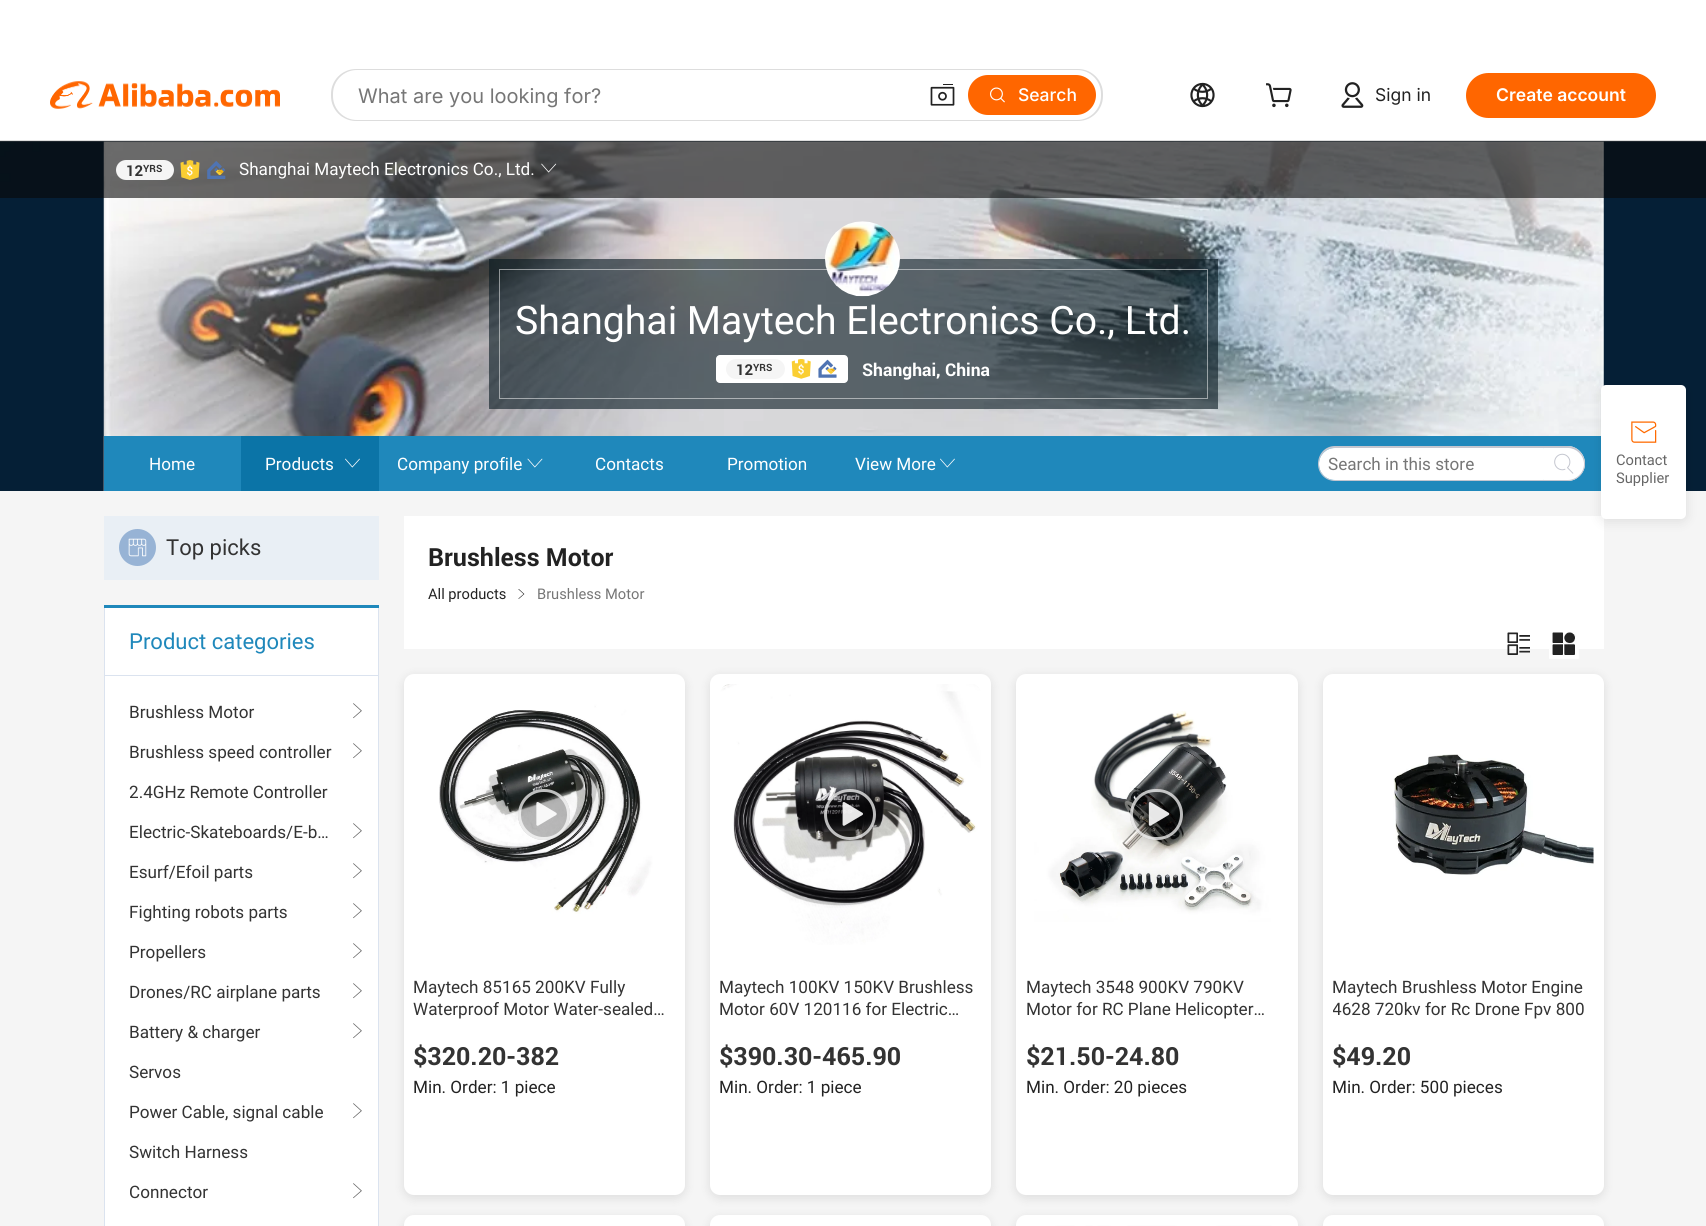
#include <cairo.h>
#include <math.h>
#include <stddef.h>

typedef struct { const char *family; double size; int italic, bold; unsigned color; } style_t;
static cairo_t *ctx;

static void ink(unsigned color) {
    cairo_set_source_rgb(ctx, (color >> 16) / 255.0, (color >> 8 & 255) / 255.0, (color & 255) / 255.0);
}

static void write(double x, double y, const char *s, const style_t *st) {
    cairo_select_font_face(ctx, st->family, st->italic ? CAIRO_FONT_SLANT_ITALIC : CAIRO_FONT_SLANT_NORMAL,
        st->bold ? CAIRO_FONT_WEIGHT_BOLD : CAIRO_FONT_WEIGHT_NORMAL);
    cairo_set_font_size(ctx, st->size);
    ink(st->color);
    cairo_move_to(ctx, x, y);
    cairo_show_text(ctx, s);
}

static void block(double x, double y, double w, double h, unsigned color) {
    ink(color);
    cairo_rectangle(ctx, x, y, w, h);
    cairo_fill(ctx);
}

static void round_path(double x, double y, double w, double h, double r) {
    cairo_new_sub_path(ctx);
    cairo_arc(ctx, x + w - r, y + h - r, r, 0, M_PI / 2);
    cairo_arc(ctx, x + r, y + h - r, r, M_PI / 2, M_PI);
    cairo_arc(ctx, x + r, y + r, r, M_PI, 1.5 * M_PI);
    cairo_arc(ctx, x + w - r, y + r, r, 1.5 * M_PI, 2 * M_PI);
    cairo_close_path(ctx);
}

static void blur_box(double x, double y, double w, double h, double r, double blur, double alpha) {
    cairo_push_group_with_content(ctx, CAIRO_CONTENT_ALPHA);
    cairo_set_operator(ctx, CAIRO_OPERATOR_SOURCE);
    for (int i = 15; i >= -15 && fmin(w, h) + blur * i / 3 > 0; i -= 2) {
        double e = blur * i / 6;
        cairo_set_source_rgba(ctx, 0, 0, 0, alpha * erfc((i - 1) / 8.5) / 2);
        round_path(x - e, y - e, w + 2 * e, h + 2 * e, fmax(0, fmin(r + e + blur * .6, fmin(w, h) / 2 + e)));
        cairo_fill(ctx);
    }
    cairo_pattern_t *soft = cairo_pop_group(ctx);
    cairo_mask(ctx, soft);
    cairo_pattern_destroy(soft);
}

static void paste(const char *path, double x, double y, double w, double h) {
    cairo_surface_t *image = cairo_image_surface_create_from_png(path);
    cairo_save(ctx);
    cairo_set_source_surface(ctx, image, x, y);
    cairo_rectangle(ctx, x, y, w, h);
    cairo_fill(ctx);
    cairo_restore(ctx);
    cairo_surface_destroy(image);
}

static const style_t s1 = {"Inter", 20, 0, 0, 0x767676};
static const style_t s2 = {"Inter Medium", 17.5, 0, 0, 0xffffff};
static const style_t s3 = {"Inter", 17.5, 0, 0, 0x222222};
static const style_t s4 = {"Inter SemiBold", 17.5, 0, 0, 0xffffff};
static const style_t s5 = {"Roboto", 15, 0, 1, 0x333333};
static const style_t s6 = {"Roboto", 10, 0, 1, 0x333333};
static const style_t s7 = {"Roboto", 17.5, 0, 0, 0xffffff};
static const style_t s8 = {"Roboto", 40, 0, 0, 0xffffff};
static const style_t s9 = {"Roboto", 17.5, 0, 1, 0xffffff};
static const style_t s10 = {"Roboto", 17.5, 0, 0, 0x767676};
static const style_t s11 = {"Roboto", 22.5, 0, 0, 0x333333};
static const style_t s12 = {"Roboto", 22.5, 0, 0, 0x1f88bb};
static const style_t s13 = {"Roboto", 17.5, 0, 0, 0x333333};
static const style_t s14 = {"Roboto", 25, 0, 1, 0x222222};
static const style_t s15 = {"Roboto", 15, 0, 0, 0x222222};
static const style_t s16 = {"Roboto", 15, 0, 0, 0x767676};
static const style_t s17 = {"Roboto", 25, 0, 1, 0x333333};
static const style_t s18 = {"Roboto", 17.5, 0, 0, 0x222222};
static const style_t s19 = {"Roboto", 15, 0, 0, 0x666666};

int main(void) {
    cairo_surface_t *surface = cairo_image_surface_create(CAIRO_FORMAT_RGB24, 1706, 1226);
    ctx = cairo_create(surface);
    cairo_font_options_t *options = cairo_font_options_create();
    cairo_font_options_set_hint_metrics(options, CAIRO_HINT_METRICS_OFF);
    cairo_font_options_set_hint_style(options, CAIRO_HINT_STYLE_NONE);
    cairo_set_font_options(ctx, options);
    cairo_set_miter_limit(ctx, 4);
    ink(0xffffff);
    cairo_paint(ctx);
    block(0, 140, 1706, 1, 0xdddddd);
    paste("pic1.png", 50, 81, 230, 28);
    round_path(331, 69, 772, 52, 25);
    cairo_fill(ctx);
    ink(0xffffff);
    round_path(333, 70, 768, 50, 24);
    cairo_fill(ctx);
    write(358, 103, "What are you looking for?", &s1);
    paste("pic2.png", 930, 84, 25, 22);
    ink(0xff6600);
    round_path(968, 75, 128, 40, 20);
    cairo_fill(ctx);
    paste("pic3.png", 990, 87, 15, 16);
    write(1018, 101, "Search", &s2);
    paste("pic4.png", 1190, 82, 25, 26);
    paste("pic5.png", 1266, 83, 26, 25);
    paste("pic6.png", 1341, 82, 23, 26);
    write(1375, 101, "Sign in", &s3);
    ink(0xff6600);
    round_path(1466, 73, 190, 45, 22.5);
    cairo_fill(ctx);
    write(1496, 101, "Create account", &s4);
    paste("pic7.png", 0, 141, 1706, 350);
    paste("pic8.png", 103, 141, 1501, 350);
    cairo_set_source_rgba(ctx, 0.2, 0.2, 0.2, 0.2);
    cairo_rectangle(ctx, 0, 141, 1706, 57);
    cairo_fill(ctx);
    cairo_set_source_rgba(ctx, 0, 0, 0, 0.5);
    cairo_rectangle(ctx, 0, 141, 1706, 57);
    cairo_fill(ctx);
    ink(0xf5f5f5);
    round_path(116, 160, 58, 20, 10);
    cairo_fill(ctx);
    write(126, 176, "12", &s5);
    write(143, 172, "YRS", &s6);
    paste("pic9.png", 180, 160, 20, 20);
    paste("pic10.png", 207, 161, 19, 18);
    write(239, 175, "Shanghai Maytech Electronics Co., Ltd.", &s7);
    paste("pic11.png", 541, 163, 16, 10);
    cairo_set_source_rgba(ctx, 0.122, 0.533, 0.733, 0.2);
    cairo_rectangle(ctx, 489, 259, 729, 150);
    cairo_fill(ctx);
    cairo_set_source_rgba(ctx, 0, 0, 0, 0.5);
    cairo_rectangle(ctx, 489, 259, 729, 150);
    cairo_fill(ctx);
    cairo_rectangle(ctx, 499.5, 269.5, 708, 129);
    cairo_set_source_rgba(ctx, 1, 1, 1, 0.5);
    cairo_set_line_width(ctx, 1);
    cairo_stroke(ctx);
    paste("pic12.png", 825, 221, 75, 76);
    write(515, 334, "Shanghai Maytech Electronics Co., Ltd.", &s8);
    round_path(716, 355, 132, 28, 4);
    cairo_fill(ctx);
    ink(0xf5f5f5);
    round_path(726, 359, 59, 20, 10);
    cairo_fill(ctx);
    write(736, 375, "12", &s5);
    write(753, 371, "YRS", &s6);
    paste("pic13.png", 791, 359, 20, 20);
    paste("pic14.png", 818, 359, 19, 19);
    write(862, 376, "Shanghai, China", &s9);
    block(104, 436, 1497, 55, 0x1f88bb);
    write(149, 470, "Home", &s7);
    block(241, 436, 138, 55, 0x0b74a7);
    write(265, 470, "Products", &s7);
    paste("pic15.png", 345, 458, 15, 10);
    write(397, 470, "Company profile", &s7);
    paste("pic16.png", 527, 458, 16, 10);
    write(595, 470, "Contacts", &s7);
    write(727, 470, "Promotion", &s7);
    write(855, 470, "View More", &s7);
    paste("pic17.png", 940, 458, 15, 10);
    ink(0xc4c6cf);
    cairo_set_fill_rule(ctx, CAIRO_FILL_RULE_EVEN_ODD);
    cairo_new_path(ctx);
    cairo_move_to(ctx, 1335, 446);
    cairo_line_to(ctx, 1544, 446);
    cairo_line_to(ctx, 1544, 481);
    cairo_line_to(ctx, 1335, 481);
    cairo_curve_to(ctx, 1325, 481, 1318, 473, 1318, 464);
    cairo_curve_to(ctx, 1318, 454, 1325, 446, 1335, 446);
    cairo_close_path(ctx);
    cairo_move_to(ctx, 1335, 448);
    cairo_line_to(ctx, 1544, 448);
    cairo_line_to(ctx, 1544, 480);
    cairo_line_to(ctx, 1335, 480);
    cairo_curve_to(ctx, 1326, 480, 1319, 473, 1319, 464);
    cairo_curve_to(ctx, 1319, 455, 1326, 448, 1335, 448);
    cairo_close_path(ctx);
    cairo_fill(ctx);
    ink(0xffffff);
    cairo_new_path(ctx);
    cairo_move_to(ctx, 1335, 448);
    cairo_line_to(ctx, 1543.5, 448);
    cairo_curve_to(ctx, 1544, 448, 1544, 448, 1544, 448.5);
    cairo_line_to(ctx, 1544, 479.5);
    cairo_curve_to(ctx, 1544, 480, 1544, 480, 1543.5, 480);
    cairo_line_to(ctx, 1335, 480);
    cairo_curve_to(ctx, 1326, 480, 1319, 473, 1319, 464);
    cairo_curve_to(ctx, 1319, 455, 1326, 448, 1335, 448);
    cairo_close_path(ctx);
    cairo_fill(ctx);
    write(1328, 470, "Search in this store", &s10);
    ink(0xffffff);
    cairo_new_path(ctx);
    cairo_move_to(ctx, 1544, 446);
    cairo_line_to(ctx, 1567.5, 446);
    cairo_curve_to(ctx, 1577, 446, 1585, 454, 1585, 463.5);
    cairo_curve_to(ctx, 1585, 473, 1577, 481, 1567.5, 481);
    cairo_line_to(ctx, 1544, 481);
    cairo_close_path(ctx);
    cairo_fill(ctx);
    ink(0xc4c6cf);
    cairo_new_path(ctx);
    cairo_move_to(ctx, 1544, 446);
    cairo_line_to(ctx, 1568, 446);
    cairo_curve_to(ctx, 1577, 446, 1585, 454, 1585, 464);
    cairo_curve_to(ctx, 1585, 473, 1577, 481, 1568, 481);
    cairo_line_to(ctx, 1544, 481);
    cairo_close_path(ctx);
    cairo_move_to(ctx, 1544, 448);
    cairo_line_to(ctx, 1568, 448);
    cairo_curve_to(ctx, 1576, 448, 1584, 455, 1584, 464);
    cairo_curve_to(ctx, 1584, 473, 1576, 480, 1568, 480);
    cairo_line_to(ctx, 1544, 480);
    cairo_close_path(ctx);
    cairo_fill(ctx);
    paste("pic18.png", 1554, 453, 20, 21);
    block(0, 491, 1706, 735, 0xf5f5f5);
    block(104, 516, 275, 64, 0xe9eff5);
    ink(0x97b3d5);
    cairo_arc(ctx, 137.5, 547.5, 18.5, 0, 2 * M_PI);
    cairo_fill(ctx);
    paste("pic19.png", 128, 538, 19, 19);
    write(166, 555, "Top picks", &s11);
    block(105, 608, 273, 618, 0xffffff);
    block(104, 605, 275, 3, 0x1f88bb);
    block(378, 608, 1, 618, 0xdbe3ef);
    block(104, 608, 1, 618, 0xdbe3ef);
    block(105, 675, 273, 1, 0xdbe3ef);
    write(129, 649, "Product categories", &s12);
    write(129, 718, "Brushless Motor", &s13);
    paste("pic20.png", 353, 703, 9, 16);
    write(129, 758, "Brushless speed controller", &s13);
    paste("pic20.png", 353, 743, 9, 16);
    write(129, 798, "2.4GHz Remote Controller", &s13);
    write(129, 838, "Electric-Skateboards/E-b…", &s13);
    paste("pic20.png", 353, 823, 9, 16);
    write(129, 878, "Esurf/Efoil parts", &s13);
    paste("pic20.png", 353, 863, 9, 16);
    write(129, 918, "Fighting robots parts", &s13);
    paste("pic20.png", 353, 903, 9, 16);
    write(129, 958, "Propellers", &s13);
    paste("pic20.png", 353, 943, 9, 16);
    write(129, 998, "Drones/RC airplane parts", &s13);
    paste("pic20.png", 353, 983, 9, 16);
    write(129, 1038, "Battery & charger", &s13);
    paste("pic20.png", 353, 1023, 9, 16);
    write(129, 1078, "Servos", &s13);
    write(129, 1118, "Power Cable, signal cable", &s13);
    paste("pic20.png", 353, 1103, 9, 16);
    write(129, 1158, "Switch Harness", &s13);
    write(129, 1198, "Connector", &s13);
    paste("pic20.png", 353, 1183, 9, 16);
    block(404, 516, 1200, 133, 0xffffff);
    write(428, 566, "Brushless Motor", &s14);
    write(428, 599, "All products", &s15);
    paste("pic21.png", 518, 589, 7, 10);
    write(537, 599, "Brushless Motor", &s16);
    paste("pic22.png", 1507, 632, 23, 23);
    paste("pic23.png", 1549, 632, 30, 27);
    ink(0x000000);
    blur_box(404, 676, 281, 522, 10, 5, 0.1);
    ink(0xffffff);
    round_path(404, 674, 281, 521, 10);
    cairo_fill(ctx);
    paste("pic24.png", 414, 684, 261, 261);
    cairo_set_source_rgba(ctx, 0, 0, 0, 0.27);
    round_path(518, 789, 52, 51, 25.5);
    cairo_fill(ctx);
    round_path(519.5, 790.5, 49, 48, 24);
    cairo_set_source_rgba(ctx, 1, 1, 1, 0.72);
    cairo_set_line_width(ctx, 3);
    cairo_stroke(ctx);
    paste("pic25.png", 536, 802, 21, 24);
    write(413, 993, "Maytech 85165 200KV Fully", &s13);
    write(413, 1015, "Waterproof Motor Water-sealed…", &s13);
    write(413, 1065, "$320.20-382", &s17);
    write(413, 1093, "Min. Order: 1 piece", &s18);
    ink(0x000000);
    blur_box(710, 676, 281, 522, 10, 5, 0.1);
    ink(0xffffff);
    round_path(710, 674, 281, 521, 10);
    cairo_fill(ctx);
    paste("pic26.png", 720, 684, 261, 261);
    cairo_set_source_rgba(ctx, 0, 0, 0, 0.27);
    round_path(824, 789, 52, 51, 25.5);
    cairo_fill(ctx);
    round_path(825.5, 790.5, 49, 48, 24);
    cairo_set_source_rgba(ctx, 1, 1, 1, 0.72);
    cairo_stroke(ctx);
    paste("pic27.png", 842, 802, 21, 24);
    write(719, 993, "Maytech 100KV 150KV Brushless", &s13);
    write(719, 1015, "Motor 60V 120116 for Electric…", &s13);
    write(719, 1065, "$390.30-465.90", &s17);
    write(719, 1093, "Min. Order: 1 piece", &s18);
    ink(0x000000);
    blur_box(1016, 676, 282, 522, 10, 5, 0.1);
    ink(0xffffff);
    round_path(1016, 674, 282, 521, 10);
    cairo_fill(ctx);
    paste("pic28.png", 1027, 684, 258, 261);
    cairo_set_source_rgba(ctx, 0, 0, 0, 0.27);
    round_path(1130, 789, 53, 51, 25.5);
    cairo_fill(ctx);
    round_path(1131.5, 790.5, 50, 48, 24);
    cairo_set_source_rgba(ctx, 1, 1, 1, 0.72);
    cairo_stroke(ctx);
    paste("pic29.png", 1148, 802, 22, 24);
    write(1026, 993, "Maytech 3548 900KV 790KV", &s13);
    write(1026, 1015, "Motor for RC Plane Helicopter…", &s13);
    write(1026, 1065, "$21.50-24.80", &s17);
    write(1026, 1093, "Min. Order: 20 pieces", &s18);
    ink(0x000000);
    blur_box(1323, 676, 281, 522, 10, 5, 0.1);
    ink(0xffffff);
    round_path(1323, 674, 281, 521, 10);
    cairo_fill(ctx);
    paste("pic30.png", 1393, 754, 201, 121);
    write(1332, 993, "Maytech Brushless Motor Engine", &s13);
    cairo_save(ctx);
    cairo_set_fill_rule(ctx, CAIRO_FILL_RULE_WINDING);
    cairo_rectangle(ctx, 1333, 975, 261, 45);
    cairo_clip(ctx);
    write(1332, 1015, "4628 720kv for Rc Drone Fpv 800", &s13);
    cairo_restore(ctx);
    write(1332, 1065, "$49.20", &s17);
    write(1332, 1093, "Min. Order: 500 pieces", &s18);
    ink(0x000000);
    blur_box(404, 1218, 281, 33, 10, 5, 0.1);
    ink(0xffffff);
    round_path(404, 1215, 281, 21, 10);
    cairo_fill(ctx);
    paste("pic31.png", 420, 1225, 249, 1);
    ink(0x000000);
    blur_box(710, 1218, 281, 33, 10, 5, 0.1);
    ink(0xffffff);
    round_path(710, 1215, 281, 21, 10);
    cairo_fill(ctx);
    paste("pic32.png", 726, 1225, 249, 1);
    ink(0x000000);
    blur_box(1016, 1218, 282, 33, 10, 5, 0.1);
    ink(0xffffff);
    round_path(1016, 1215, 282, 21, 10);
    cairo_fill(ctx);
    paste("pic33.png", 1033, 1225, 248, 1);
    ink(0x000000);
    blur_box(1323, 1218, 281, 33, 10, 5, 0.1);
    ink(0xffffff);
    round_path(1323, 1215, 281, 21, 10);
    cairo_fill(ctx);
    ink(0x000000);
    blur_box(1601, 388, 85, 133, 5, 6, 0.1);
    ink(0xffffff);
    round_path(1601, 385, 85, 134, 5);
    cairo_fill(ctx);
    paste("pic34.png", 1631, 421, 26, 22);
    write(1616, 465, "Contact", &s19);
    write(1616, 483, "Supplier", &s19);
    cairo_surface_write_to_png(surface, "screenshot.png");
    cairo_font_options_destroy(options);
    cairo_destroy(ctx);
    cairo_surface_destroy(surface);
    return 0;
}
